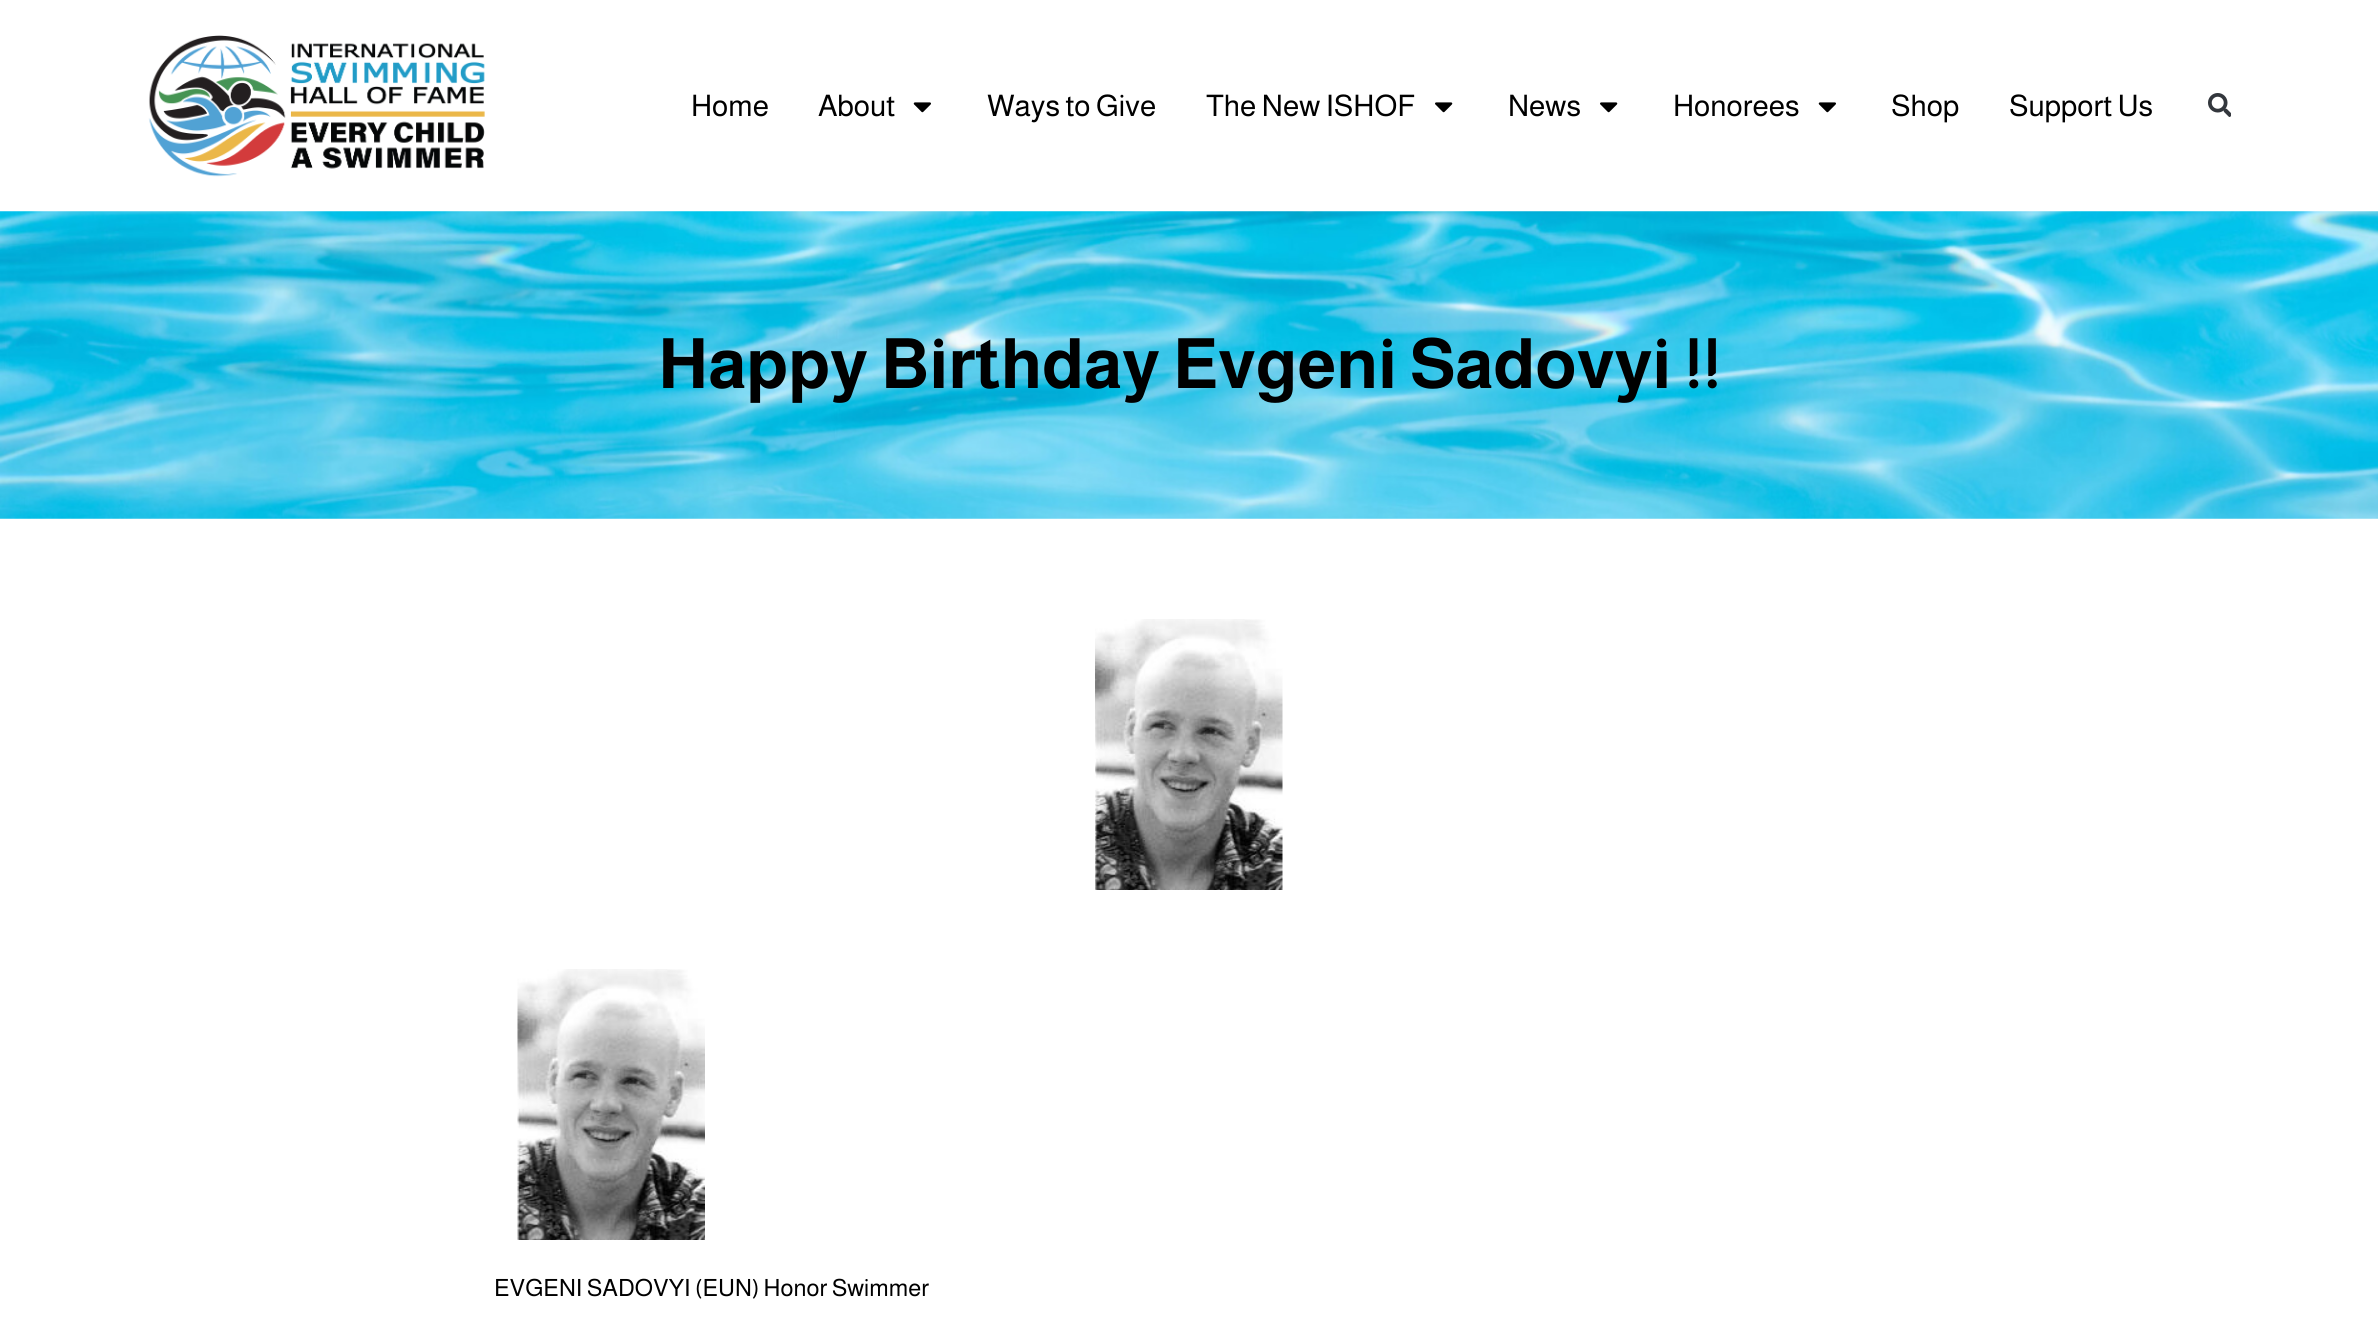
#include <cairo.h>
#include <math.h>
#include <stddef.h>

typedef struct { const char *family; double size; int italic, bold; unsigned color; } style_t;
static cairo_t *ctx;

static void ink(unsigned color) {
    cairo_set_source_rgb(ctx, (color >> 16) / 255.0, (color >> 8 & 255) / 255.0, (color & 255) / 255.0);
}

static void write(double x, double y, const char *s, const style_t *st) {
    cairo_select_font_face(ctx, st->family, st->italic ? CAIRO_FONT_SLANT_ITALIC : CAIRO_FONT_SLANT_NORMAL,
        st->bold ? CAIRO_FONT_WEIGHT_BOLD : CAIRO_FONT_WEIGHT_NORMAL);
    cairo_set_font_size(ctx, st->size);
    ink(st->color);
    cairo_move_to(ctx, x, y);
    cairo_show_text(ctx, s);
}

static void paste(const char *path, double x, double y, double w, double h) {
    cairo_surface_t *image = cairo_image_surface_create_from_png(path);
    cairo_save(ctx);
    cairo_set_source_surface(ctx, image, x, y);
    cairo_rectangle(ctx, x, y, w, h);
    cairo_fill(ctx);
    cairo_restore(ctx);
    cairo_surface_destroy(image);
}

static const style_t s1 = {"Almarai", 29.75, 0, 0, 0x000000};
static const style_t s2 = {"Almarai", 69.5, 0, 1, 0x000000};
static const style_t s3 = {"Almarai", 23.8, 0, 0, 0x000000};

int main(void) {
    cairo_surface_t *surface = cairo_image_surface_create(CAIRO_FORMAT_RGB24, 2378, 1331);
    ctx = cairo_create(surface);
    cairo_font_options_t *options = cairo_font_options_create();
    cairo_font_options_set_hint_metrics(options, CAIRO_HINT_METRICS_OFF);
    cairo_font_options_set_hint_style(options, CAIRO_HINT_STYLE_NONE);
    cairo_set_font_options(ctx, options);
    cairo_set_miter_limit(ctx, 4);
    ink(0xffffff);
    cairo_paint(ctx);
    paste("pic1.png", 148, 35, 337, 142);
    write(691, 116, "Home", &s1);
    write(818, 116, "About", &s1);
    paste("pic2.png", 913, 102, 18, 11);
    write(987, 116, "Ways to Give", &s1);
    write(1206, 116, "The New ISHOF", &s1);
    paste("pic3.png", 1435, 102, 18, 11);
    write(1508, 116, "News", &s1);
    paste("pic3.png", 1600, 102, 18, 11);
    write(1673, 116, "Honorees", &s1);
    paste("pic2.png", 1818, 102, 18, 11);
    write(1891, 116, "Shop", &s1);
    write(2009, 116, "Support Us", &s1);
    paste("pic4.png", 2208, 93, 23, 24);
    paste("pic5.png", 0, 211, 2378, 308);
    write(658, 388, "Happy Birthday Evgeni Sadovyi !!", &s2);
    paste("pic6.png", 1095, 619, 188, 271);
    paste("pic7.png", 517, 969, 188, 271);
    write(494, 1296, "EVGENI SADOVYI (EUN) Honor Swimmer", &s3);
    cairo_surface_write_to_png(surface, "screenshot.png");
    cairo_font_options_destroy(options);
    cairo_destroy(ctx);
    cairo_surface_destroy(surface);
    return 0;
}
